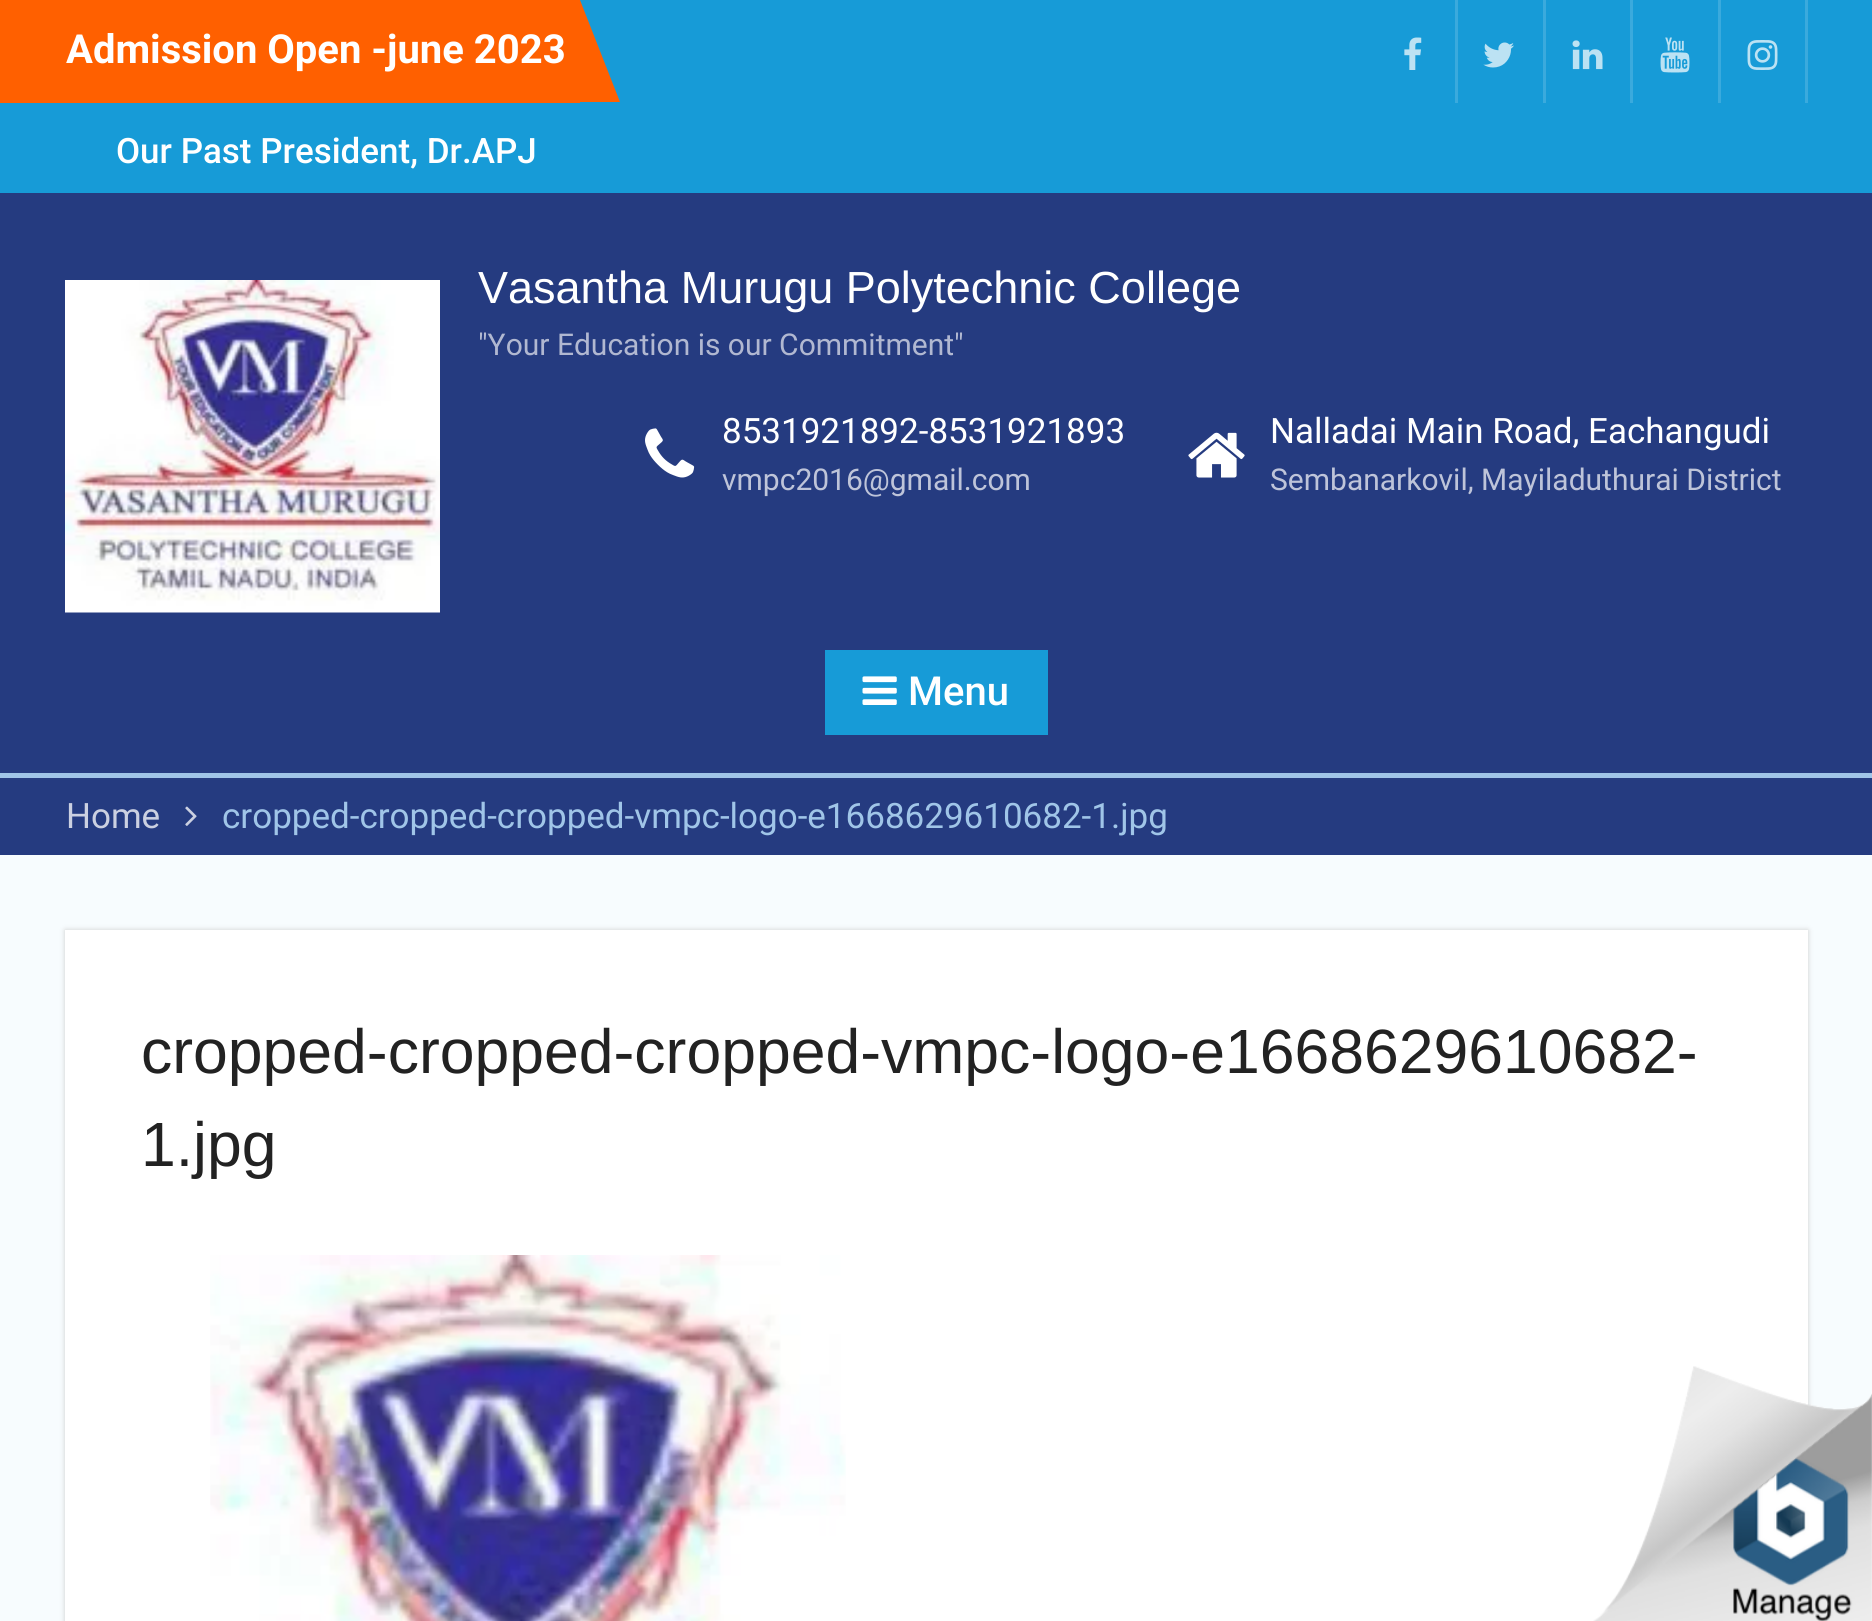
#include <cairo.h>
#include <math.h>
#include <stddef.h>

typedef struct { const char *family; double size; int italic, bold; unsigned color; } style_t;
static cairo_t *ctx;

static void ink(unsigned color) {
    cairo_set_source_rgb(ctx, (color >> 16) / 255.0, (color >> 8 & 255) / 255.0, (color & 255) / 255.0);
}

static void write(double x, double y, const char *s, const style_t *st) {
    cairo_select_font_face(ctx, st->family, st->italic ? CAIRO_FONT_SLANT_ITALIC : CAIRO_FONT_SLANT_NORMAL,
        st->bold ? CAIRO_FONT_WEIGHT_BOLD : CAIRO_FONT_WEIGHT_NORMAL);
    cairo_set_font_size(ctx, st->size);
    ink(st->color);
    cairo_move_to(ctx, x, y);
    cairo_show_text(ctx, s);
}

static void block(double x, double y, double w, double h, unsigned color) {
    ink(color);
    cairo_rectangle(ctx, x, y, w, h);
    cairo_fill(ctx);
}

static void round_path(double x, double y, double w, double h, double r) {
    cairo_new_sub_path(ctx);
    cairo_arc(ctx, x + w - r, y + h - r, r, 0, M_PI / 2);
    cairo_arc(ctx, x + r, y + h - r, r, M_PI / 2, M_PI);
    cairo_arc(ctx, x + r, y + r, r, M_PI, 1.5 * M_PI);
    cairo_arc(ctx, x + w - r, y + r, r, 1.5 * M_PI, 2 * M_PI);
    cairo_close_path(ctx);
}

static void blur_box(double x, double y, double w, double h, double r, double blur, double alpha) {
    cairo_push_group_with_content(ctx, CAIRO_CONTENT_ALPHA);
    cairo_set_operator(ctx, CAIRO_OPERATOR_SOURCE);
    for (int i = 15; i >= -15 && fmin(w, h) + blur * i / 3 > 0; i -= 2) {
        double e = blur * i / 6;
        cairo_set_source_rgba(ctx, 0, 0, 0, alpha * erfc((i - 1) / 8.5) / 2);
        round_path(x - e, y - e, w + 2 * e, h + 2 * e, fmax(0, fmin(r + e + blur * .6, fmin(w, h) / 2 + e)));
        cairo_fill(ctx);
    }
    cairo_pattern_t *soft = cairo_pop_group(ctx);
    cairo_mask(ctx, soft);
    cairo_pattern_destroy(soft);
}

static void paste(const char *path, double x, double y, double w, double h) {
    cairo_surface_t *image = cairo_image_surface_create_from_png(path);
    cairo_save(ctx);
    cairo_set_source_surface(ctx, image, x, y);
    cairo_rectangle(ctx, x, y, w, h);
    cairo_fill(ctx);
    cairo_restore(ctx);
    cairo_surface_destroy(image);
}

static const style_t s1 = {"Roboto", 40, 0, 1, 0xffffff};
static const style_t s2 = {"Roboto Medium", 35, 0, 0, 0xffffff};
static const style_t s3 = {"Liberation Sans", 45, 0, 0, 0xffffff};
static const style_t s4 = {"Roboto", 30, 0, 0, 0xb1b8d1};
static const style_t s5 = {"Roboto", 35, 0, 0, 0xffffff};
static const style_t s6 = {"Roboto", 30, 0, 0, 0xbec4d9};
static const style_t s7 = {"Roboto Medium", 40, 0, 0, 0xffffff};
static const style_t s8 = {"Roboto", 35, 0, 0, 0xcbd0e1};
static const style_t s9 = {"Roboto", 35, 0, 0, 0xa0c5e8};
static const style_t s10 = {"Liberation Sans", 62.5, 0, 0, 0x222222};

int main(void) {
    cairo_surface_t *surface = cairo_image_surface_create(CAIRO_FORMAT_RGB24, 1872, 1621);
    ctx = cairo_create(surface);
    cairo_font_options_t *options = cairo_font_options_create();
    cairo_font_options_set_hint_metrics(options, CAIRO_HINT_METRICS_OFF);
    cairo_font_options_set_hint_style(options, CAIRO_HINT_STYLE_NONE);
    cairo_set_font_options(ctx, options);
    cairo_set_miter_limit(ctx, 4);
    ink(0xf7fcfe);
    cairo_paint(ctx);
    block(0, 0, 1872, 193, 0x179bd7);
    block(0, 0, 580, 103, 0xff6000);
    write(66, 63, "Admission Open -june 2023", &s1);
    ink(0xff6000);
    cairo_new_path(ctx);
    cairo_move_to(ctx, 580, 102);
    cairo_line_to(ctx, 580, 0);
    cairo_line_to(ctx, 620, 102);
    cairo_close_path(ctx);
    cairo_fill(ctx);
    write(116, 163, "Our Past President, Dr.APJ", &s2);
    block(1455, 0, 3, 103, 0x3aaadd);
    paste("pic1.png", 1404, 37, 18, 33);
    block(1543, 0, 3, 103, 0x3aaadd);
    paste("pic2.png", 1483, 42, 31, 26);
    block(1630, 0, 3, 103, 0x3aaadd);
    paste("pic3.png", 1572, 40, 31, 30);
    block(1718, 0, 3, 103, 0x3aaadd);
    paste("pic4.png", 1660, 37, 30, 36);
    block(1805, 0, 3, 103, 0x3aaadd);
    paste("pic5.png", 1747, 40, 31, 30);
    block(0, 193, 1872, 580, 0x253b80);
    paste("pic6.png", 65, 280, 375, 333);
    write(478, 303, "Vasantha Murugu Polytechnic College", &s3);
    write(478, 355, "\"Your Education is our Commitment\"", &s4);
    paste("pic7.png", 645, 428, 50, 50);
    write(722, 443, "8531921892-8531921893", &s5);
    write(722, 490, "vmpc2016@gmail.com", &s6);
    paste("pic8.png", 1188, 432, 57, 46);
    write(1270, 443, "Nalladai Main Road, Eachangudi", &s5);
    write(1270, 490, "Sembanarkovil, Mayiladuthurai District", &s6);
    block(825, 650, 223, 85, 0x179bd7);
    paste("pic9.png", 862, 676, 35, 29);
    write(908, 705, "Menu", &s7);
    block(0, 778, 1872, 77, 0x253b80);
    block(0, 773, 1872, 5, 0xa0c5e8);
    write(66, 828, "Home", &s8);
    paste("pic10.png", 185, 806, 12, 20);
    write(222, 828, "cropped-cropped-cropped-vmpc-logo-e1668629610682-1.jpg", &s9);
    ink(0xcfcfcf);
    blur_box(65, 930, 1743, 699, 0, 2.5, 1);
    block(65, 930, 1743, 691, 0xffffff);
    write(141, 1073, "cropped-cropped-cropped-vmpc-logo-e1668629610682-", &s10);
    write(141, 1166, "1.jpg", &s10);
    paste("pic11.png", 210, 1255, 636, 366);
    paste("pic12.png", 1593, 1366, 279, 255);
    cairo_surface_write_to_png(surface, "screenshot.png");
    cairo_font_options_destroy(options);
    cairo_destroy(ctx);
    cairo_surface_destroy(surface);
    return 0;
}
